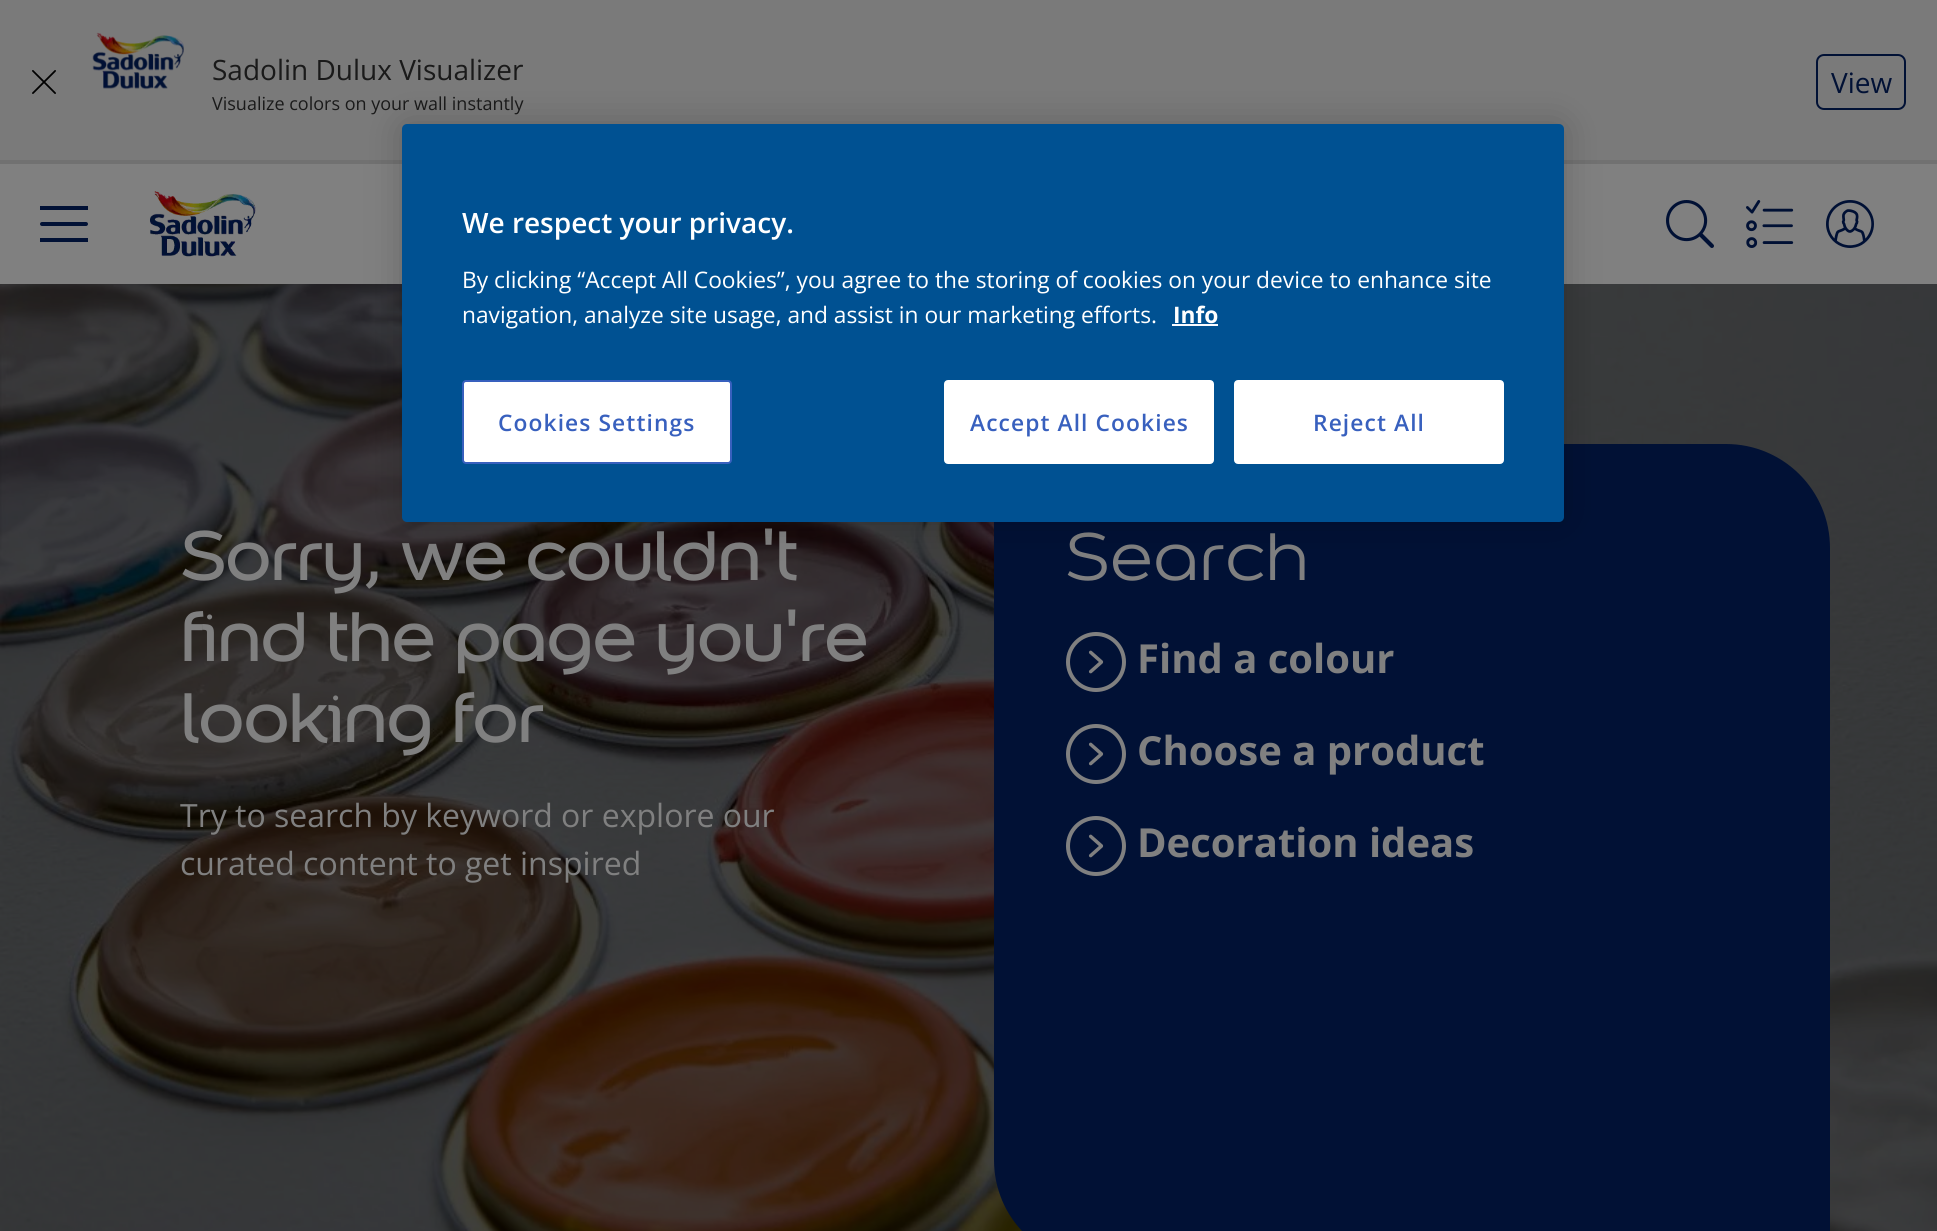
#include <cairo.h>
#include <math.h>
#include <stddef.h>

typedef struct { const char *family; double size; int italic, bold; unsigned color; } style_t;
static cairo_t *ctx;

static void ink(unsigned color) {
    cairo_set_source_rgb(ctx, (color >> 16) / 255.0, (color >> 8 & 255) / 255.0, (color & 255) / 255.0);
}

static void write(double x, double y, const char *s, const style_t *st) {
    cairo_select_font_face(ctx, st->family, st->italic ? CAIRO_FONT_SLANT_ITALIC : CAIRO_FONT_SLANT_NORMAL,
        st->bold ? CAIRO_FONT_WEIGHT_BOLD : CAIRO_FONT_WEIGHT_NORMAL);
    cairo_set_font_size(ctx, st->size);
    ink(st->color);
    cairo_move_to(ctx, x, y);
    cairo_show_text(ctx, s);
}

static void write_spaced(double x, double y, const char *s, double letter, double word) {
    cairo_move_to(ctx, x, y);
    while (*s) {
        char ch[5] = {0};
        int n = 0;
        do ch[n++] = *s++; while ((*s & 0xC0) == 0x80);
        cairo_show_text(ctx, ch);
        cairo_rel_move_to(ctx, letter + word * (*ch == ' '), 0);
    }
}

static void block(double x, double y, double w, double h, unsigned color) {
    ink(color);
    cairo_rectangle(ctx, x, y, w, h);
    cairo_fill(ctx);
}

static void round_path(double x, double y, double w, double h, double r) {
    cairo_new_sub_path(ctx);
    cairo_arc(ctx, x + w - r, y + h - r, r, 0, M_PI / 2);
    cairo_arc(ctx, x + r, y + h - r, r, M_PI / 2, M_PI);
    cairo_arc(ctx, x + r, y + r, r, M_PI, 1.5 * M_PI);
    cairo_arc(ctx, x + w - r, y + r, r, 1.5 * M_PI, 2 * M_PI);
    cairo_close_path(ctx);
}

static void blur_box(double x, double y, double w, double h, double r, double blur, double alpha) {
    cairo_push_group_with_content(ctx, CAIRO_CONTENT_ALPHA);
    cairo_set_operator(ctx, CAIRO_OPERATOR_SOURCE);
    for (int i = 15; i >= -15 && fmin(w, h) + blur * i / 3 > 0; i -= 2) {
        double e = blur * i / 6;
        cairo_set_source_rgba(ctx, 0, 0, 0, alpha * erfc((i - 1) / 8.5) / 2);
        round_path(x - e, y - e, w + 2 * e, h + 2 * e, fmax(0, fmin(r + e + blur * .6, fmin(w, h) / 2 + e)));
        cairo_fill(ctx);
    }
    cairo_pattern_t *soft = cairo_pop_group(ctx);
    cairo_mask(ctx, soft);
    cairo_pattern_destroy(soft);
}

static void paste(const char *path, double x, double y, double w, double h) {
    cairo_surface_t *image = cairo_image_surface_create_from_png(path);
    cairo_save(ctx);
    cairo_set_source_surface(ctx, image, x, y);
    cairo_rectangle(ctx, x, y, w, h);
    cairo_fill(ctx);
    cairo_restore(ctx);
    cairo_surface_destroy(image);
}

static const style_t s1 = {"Open Sans", 28, 0, 0, 0x1a1a1a};
static const style_t s2 = {"Open Sans", 18, 0, 0, 0x1a1a1a};
static const style_t s3 = {"Open Sans", 28, 0, 0, 0x011135};
static const style_t s4 = {"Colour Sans", 72, 0, 1, 0x808080};
static const style_t s5 = {"Open Sans", 32, 0, 0, 0x808080};
static const style_t s6 = {"Colour Sans", 72, 0, 0, 0x808080};
static const style_t s7 = {"Open Sans", 40, 0, 1, 0x808080};
static const style_t s8 = {"Open Sans SemiBold", 28, 0, 0, 0xffffff};
static const style_t s9 = {"Open Sans", 22.75, 0, 0, 0xffffff};
static const style_t s10 = {"Open Sans", 22.75, 0, 1, 0xffffff};

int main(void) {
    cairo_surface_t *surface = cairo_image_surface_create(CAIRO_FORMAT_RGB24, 1937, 1231);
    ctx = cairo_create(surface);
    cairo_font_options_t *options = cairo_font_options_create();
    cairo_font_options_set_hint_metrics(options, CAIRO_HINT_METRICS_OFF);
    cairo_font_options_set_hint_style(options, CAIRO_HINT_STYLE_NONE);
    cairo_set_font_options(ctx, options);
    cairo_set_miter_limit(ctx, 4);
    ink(0x808080);
    cairo_paint(ctx);
    block(0, 0, 1937, 160, 0x7a7a7a);
    block(0, 160, 1937, 4, 0x717171);
    paste("pic1.png", 32, 70, 24, 24);
    paste("pic2.png", 92, 32, 92, 58);
    write(212, 80, "Sadolin Dulux Visualizer", &s1);
    write(212, 110, "Visualize colors on your wall instantly", &s2);
    round_path(1817, 55, 88, 54, 7);
    ink(0x011135);
    cairo_stroke(ctx);
    write(1831, 93, "View", &s3);
    round_path(40, 222, 48, 4, 2);
    cairo_fill(ctx);
    block(40, 206, 48, 4, 0x011135);
    block(40, 238, 48, 4, 0x011135);
    paste("pic3.png", 150, 191, 106, 66);
    paste("pic4.png", 1666, 200, 48, 48);
    paste("pic5.png", 1746, 200, 48, 48);
    paste("pic6.png", 1826, 200, 48, 48);
    paste("pic7.png", 0, 284, 1937, 947);
    write(180, 580, "Sorry, we couldn't", &s4);
    write(180, 661, "find the page you're", &s4);
    write(180, 742, "looking for", &s4);
    write(180, 827, "Try to search by keyword or explore our", &s5);
    write(180, 875, "curated content to get inspired", &s5);
    ink(0x011135);
    cairo_new_path(ctx);
    cairo_move_to(ctx, 994, 444);
    cairo_line_to(ctx, 1726, 444);
    cairo_curve_to(ctx, 1783.5, 444, 1830, 490.5, 1830, 548);
    cairo_line_to(ctx, 1830, 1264);
    cairo_line_to(ctx, 1098, 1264);
    cairo_curve_to(ctx, 1040.5, 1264, 994, 1217.5, 994, 1160);
    cairo_close_path(ctx);
    cairo_fill(ctx);
    write(1065, 580, "Search", &s6);
    cairo_new_path(ctx);
    cairo_arc(ctx, 1096, 662, 28, 0, 2 * M_PI);
    cairo_set_line_width(ctx, 4);
    cairo_stroke(ctx);
    paste("pic8.png", 1088, 650, 16, 24);
    write(1137, 673, "Find a colour", &s7);
    cairo_new_path(ctx);
    cairo_arc(ctx, 1096, 754, 28, 0, 2 * M_PI);
    cairo_stroke(ctx);
    paste("pic8.png", 1088, 742, 16, 24);
    write(1137, 765, "Choose a product", &s7);
    cairo_new_path(ctx);
    cairo_arc(ctx, 1096, 846, 28, 0, 2 * M_PI);
    cairo_stroke(ctx);
    paste("pic8.png", 1088, 834, 16, 24);
    write(1137, 857, "Decoration ideas", &s7);
    ink(0x000000);
    blur_box(402, 124, 1162, 398, 5, 18, 0.2);
    ink(0x005192);
    round_path(402, 124, 1162, 398, 5);
    cairo_fill(ctx);
    write(462, 233, "We respect your privacy.", &s8);
    write(462, 288, "By clicking “Accept All Cookies”, you agree to the storing of cookies on your device to enhance site", &s9);
    write(462, 323, "navigation, analyze site usage, and assist in our marketing efforts.", &s9);
    write(1173, 323, "Info", &s10);
    block(1172, 324, 46, 2, 0xfafbff);
    ink(0xffffff);
    round_path(463, 381, 268, 82, 3);
    cairo_fill_preserve(ctx);
    ink(0x3860be);
    cairo_set_line_width(ctx, 2);
    cairo_stroke(ctx);
    cairo_select_font_face(ctx, "Open Sans SemiBold", CAIRO_FONT_SLANT_NORMAL, CAIRO_FONT_WEIGHT_NORMAL);
    write_spaced(498, 431, "Cookies Settings", 1.1, 0);
    ink(0xffffff);
    round_path(945, 381, 268, 82, 3);
    cairo_fill_preserve(ctx);
    cairo_stroke(ctx);
    ink(0x3860be);
    write_spaced(970, 431, "Accept All Cookies", 1.1, 0);
    ink(0xffffff);
    round_path(1235, 381, 268, 82, 3);
    cairo_fill_preserve(ctx);
    cairo_stroke(ctx);
    ink(0x3860be);
    write_spaced(1313, 431, "Reject All", 1.1, 0);
    cairo_surface_write_to_png(surface, "screenshot.png");
    cairo_font_options_destroy(options);
    cairo_destroy(ctx);
    cairo_surface_destroy(surface);
    return 0;
}
